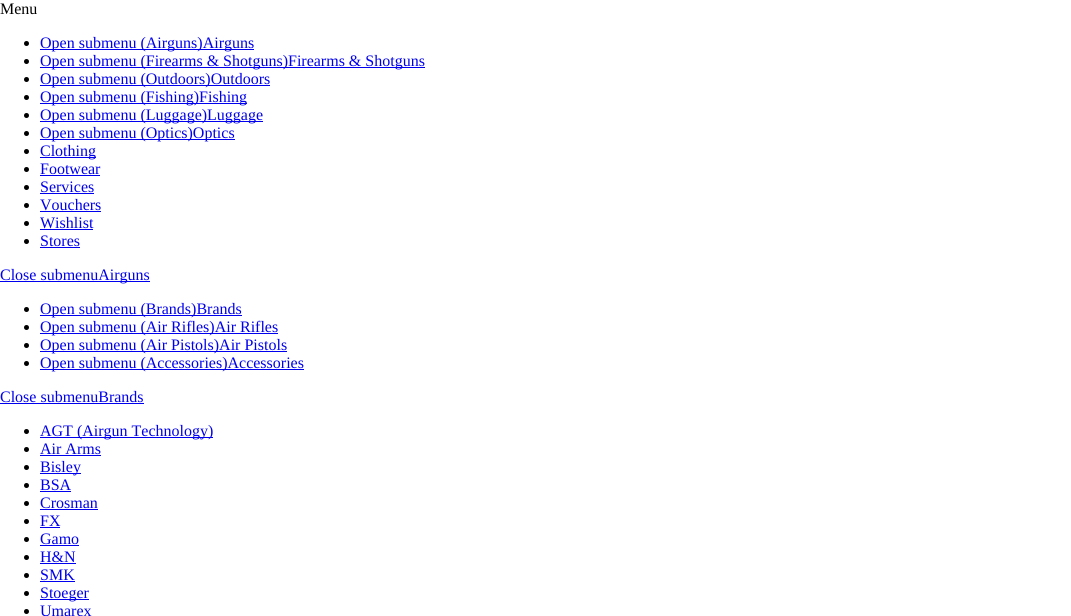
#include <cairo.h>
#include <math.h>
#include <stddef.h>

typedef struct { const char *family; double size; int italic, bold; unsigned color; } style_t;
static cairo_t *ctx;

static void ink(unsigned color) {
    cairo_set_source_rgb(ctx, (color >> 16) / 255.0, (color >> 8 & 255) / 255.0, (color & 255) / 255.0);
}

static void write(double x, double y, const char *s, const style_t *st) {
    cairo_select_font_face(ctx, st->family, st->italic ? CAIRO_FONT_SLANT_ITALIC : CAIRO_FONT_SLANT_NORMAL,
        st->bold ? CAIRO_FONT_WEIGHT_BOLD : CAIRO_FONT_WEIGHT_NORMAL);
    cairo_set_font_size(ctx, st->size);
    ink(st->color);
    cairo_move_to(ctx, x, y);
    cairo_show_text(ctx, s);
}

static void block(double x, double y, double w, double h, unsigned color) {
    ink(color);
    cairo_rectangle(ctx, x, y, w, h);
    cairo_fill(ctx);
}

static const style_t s1 = {"Liberation Serif", 16, 0, 0, 0x000000};
static const style_t s2 = {"Liberation Serif", 16, 0, 0, 0x0000ee};

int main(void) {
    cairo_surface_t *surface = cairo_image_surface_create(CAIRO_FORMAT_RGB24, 1071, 616);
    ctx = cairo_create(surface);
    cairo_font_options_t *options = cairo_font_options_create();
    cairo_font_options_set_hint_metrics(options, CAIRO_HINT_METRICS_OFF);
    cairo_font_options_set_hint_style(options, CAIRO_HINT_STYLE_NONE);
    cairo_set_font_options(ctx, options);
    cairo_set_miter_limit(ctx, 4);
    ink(0xffffff);
    cairo_paint(ctx);
    write(0, 14, "Menu", &s1);
    cairo_new_path(ctx);
    cairo_arc(ctx, 26.5, 43.5, 2.5, 0, 2 * M_PI);
    cairo_fill(ctx);
    block(40, 49, 214, 1, 0x0000ee);
    write(40, 48, "Open submenu (Airguns)Airguns", &s2);
    ink(0x000000);
    cairo_new_path(ctx);
    cairo_arc(ctx, 26.5, 61.5, 2.5, 0, 2 * M_PI);
    cairo_fill(ctx);
    block(40, 67, 385, 1, 0x0000ee);
    write(40, 66, "Open submenu (Firearms & Shotguns)Firearms & Shotguns", &s2);
    ink(0x000000);
    cairo_new_path(ctx);
    cairo_arc(ctx, 26.5, 79.5, 2.5, 0, 2 * M_PI);
    cairo_fill(ctx);
    block(40, 85, 230, 1, 0x0000ee);
    write(40, 84, "Open submenu (Outdoors)Outdoors", &s2);
    ink(0x000000);
    cairo_new_path(ctx);
    cairo_arc(ctx, 26.5, 97.5, 2.5, 0, 2 * M_PI);
    cairo_fill(ctx);
    block(40, 103, 207, 1, 0x0000ee);
    write(40, 102, "Open submenu (Fishing)Fishing", &s2);
    ink(0x000000);
    cairo_new_path(ctx);
    cairo_arc(ctx, 26.5, 115.5, 2.5, 0, 2 * M_PI);
    cairo_fill(ctx);
    block(40, 121, 223, 1, 0x0000ee);
    write(40, 120, "Open submenu (Luggage)Luggage", &s2);
    ink(0x000000);
    cairo_new_path(ctx);
    cairo_arc(ctx, 26.5, 133.5, 2.5, 0, 2 * M_PI);
    cairo_fill(ctx);
    block(40, 139, 195, 1, 0x0000ee);
    write(40, 138, "Open submenu (Optics)Optics", &s2);
    ink(0x000000);
    cairo_new_path(ctx);
    cairo_arc(ctx, 26.5, 151.5, 2.5, 0, 2 * M_PI);
    cairo_fill(ctx);
    block(40, 157, 56, 1, 0x0000ee);
    write(40, 156, "Clothing", &s2);
    ink(0x000000);
    cairo_new_path(ctx);
    cairo_arc(ctx, 26.5, 169.5, 2.5, 0, 2 * M_PI);
    cairo_fill(ctx);
    write(40, 174, "Footwear", &s2);
    block(40, 175, 60, 1, 0x0000ee);
    ink(0x000000);
    cairo_new_path(ctx);
    cairo_arc(ctx, 26.5, 187.5, 2.5, 0, 2 * M_PI);
    cairo_fill(ctx);
    write(40, 192, "Services", &s2);
    block(40, 193, 54, 1, 0x0000ee);
    ink(0x000000);
    cairo_new_path(ctx);
    cairo_arc(ctx, 26.5, 205.5, 2.5, 0, 2 * M_PI);
    cairo_fill(ctx);
    write(40, 210, "Vouchers", &s2);
    block(40, 211, 61, 1, 0x0000ee);
    ink(0x000000);
    cairo_new_path(ctx);
    cairo_arc(ctx, 26.5, 223.5, 2.5, 0, 2 * M_PI);
    cairo_fill(ctx);
    write(40, 228, "Wishlist", &s2);
    block(40, 229, 53, 1, 0x0000ee);
    ink(0x000000);
    cairo_new_path(ctx);
    cairo_arc(ctx, 26.5, 241.5, 2.5, 0, 2 * M_PI);
    cairo_fill(ctx);
    write(40, 246, "Stores", &s2);
    block(40, 247, 40, 1, 0x0000ee);
    block(0, 281, 150, 1, 0x0000ee);
    write(0, 280, "Close submenuAirguns", &s2);
    ink(0x000000);
    cairo_new_path(ctx);
    cairo_arc(ctx, 26.5, 309.5, 2.5, 0, 2 * M_PI);
    cairo_fill(ctx);
    block(40, 315, 202, 1, 0x0000ee);
    write(40, 314, "Open submenu (Brands)Brands", &s2);
    ink(0x000000);
    cairo_new_path(ctx);
    cairo_arc(ctx, 26.5, 327.5, 2.5, 0, 2 * M_PI);
    cairo_fill(ctx);
    block(40, 333, 238, 1, 0x0000ee);
    write(40, 332, "Open submenu (Air Rifles)Air Rifles", &s2);
    ink(0x000000);
    cairo_new_path(ctx);
    cairo_arc(ctx, 26.5, 345.5, 2.5, 0, 2 * M_PI);
    cairo_fill(ctx);
    block(40, 351, 247, 1, 0x0000ee);
    write(40, 350, "Open submenu (Air Pistols)Air Pistols", &s2);
    ink(0x000000);
    cairo_new_path(ctx);
    cairo_arc(ctx, 26.5, 363.5, 2.5, 0, 2 * M_PI);
    cairo_fill(ctx);
    block(40, 369, 264, 1, 0x0000ee);
    write(40, 368, "Open submenu (Accessories)Accessories", &s2);
    write(0, 402, "Close submenuBrands", &s2);
    block(0, 403, 144, 1, 0x0000ee);
    ink(0x000000);
    cairo_new_path(ctx);
    cairo_arc(ctx, 26.5, 431.5, 2.5, 0, 2 * M_PI);
    cairo_fill(ctx);
    block(40, 437, 173, 1, 0x0000ee);
    write(40, 436, "AGT (Airgun Technology)", &s2);
    ink(0x000000);
    cairo_new_path(ctx);
    cairo_arc(ctx, 26.5, 449.5, 2.5, 0, 2 * M_PI);
    cairo_fill(ctx);
    write(40, 454, "Air Arms", &s2);
    block(40, 455, 61, 1, 0x0000ee);
    ink(0x000000);
    cairo_new_path(ctx);
    cairo_arc(ctx, 26.5, 467.5, 2.5, 0, 2 * M_PI);
    cairo_fill(ctx);
    block(40, 473, 41, 1, 0x0000ee);
    write(40, 472, "Bisley", &s2);
    ink(0x000000);
    cairo_new_path(ctx);
    cairo_arc(ctx, 26.5, 485.5, 2.5, 0, 2 * M_PI);
    cairo_fill(ctx);
    write(40, 490, "BSA", &s2);
    block(40, 491, 31, 1, 0x0000ee);
    ink(0x000000);
    cairo_new_path(ctx);
    cairo_arc(ctx, 26.5, 503.5, 2.5, 0, 2 * M_PI);
    cairo_fill(ctx);
    write(40, 508, "Crosman", &s2);
    block(40, 509, 58, 1, 0x0000ee);
    ink(0x000000);
    cairo_new_path(ctx);
    cairo_arc(ctx, 26.5, 521.5, 2.5, 0, 2 * M_PI);
    cairo_fill(ctx);
    write(40, 526, "FX", &s2);
    block(40, 527, 20, 1, 0x0000ee);
    ink(0x000000);
    cairo_new_path(ctx);
    cairo_arc(ctx, 26.5, 539.5, 2.5, 0, 2 * M_PI);
    cairo_fill(ctx);
    write(40, 544, "Gamo", &s2);
    block(40, 545, 39, 1, 0x0000ee);
    ink(0x000000);
    cairo_new_path(ctx);
    cairo_arc(ctx, 26.5, 557.5, 2.5, 0, 2 * M_PI);
    cairo_fill(ctx);
    write(40, 562, "H&N", &s2);
    block(40, 563, 36, 1, 0x0000ee);
    ink(0x000000);
    cairo_new_path(ctx);
    cairo_arc(ctx, 26.5, 575.5, 2.5, 0, 2 * M_PI);
    cairo_fill(ctx);
    write(40, 580, "SMK", &s2);
    block(40, 581, 35, 1, 0x0000ee);
    ink(0x000000);
    cairo_new_path(ctx);
    cairo_arc(ctx, 26.5, 593.5, 2.5, 0, 2 * M_PI);
    cairo_fill(ctx);
    block(40, 599, 49, 1, 0x0000ee);
    write(40, 598, "Stoeger", &s2);
    ink(0x000000);
    cairo_new_path(ctx);
    cairo_arc(ctx, 26.5, 611.5, 2.5, 0, 2 * M_PI);
    cairo_fill(ctx);
    write(40, 616, "Umarex", &s2);
    cairo_surface_write_to_png(surface, "screenshot.png");
    cairo_font_options_destroy(options);
    cairo_destroy(ctx);
    cairo_surface_destroy(surface);
    return 0;
}
